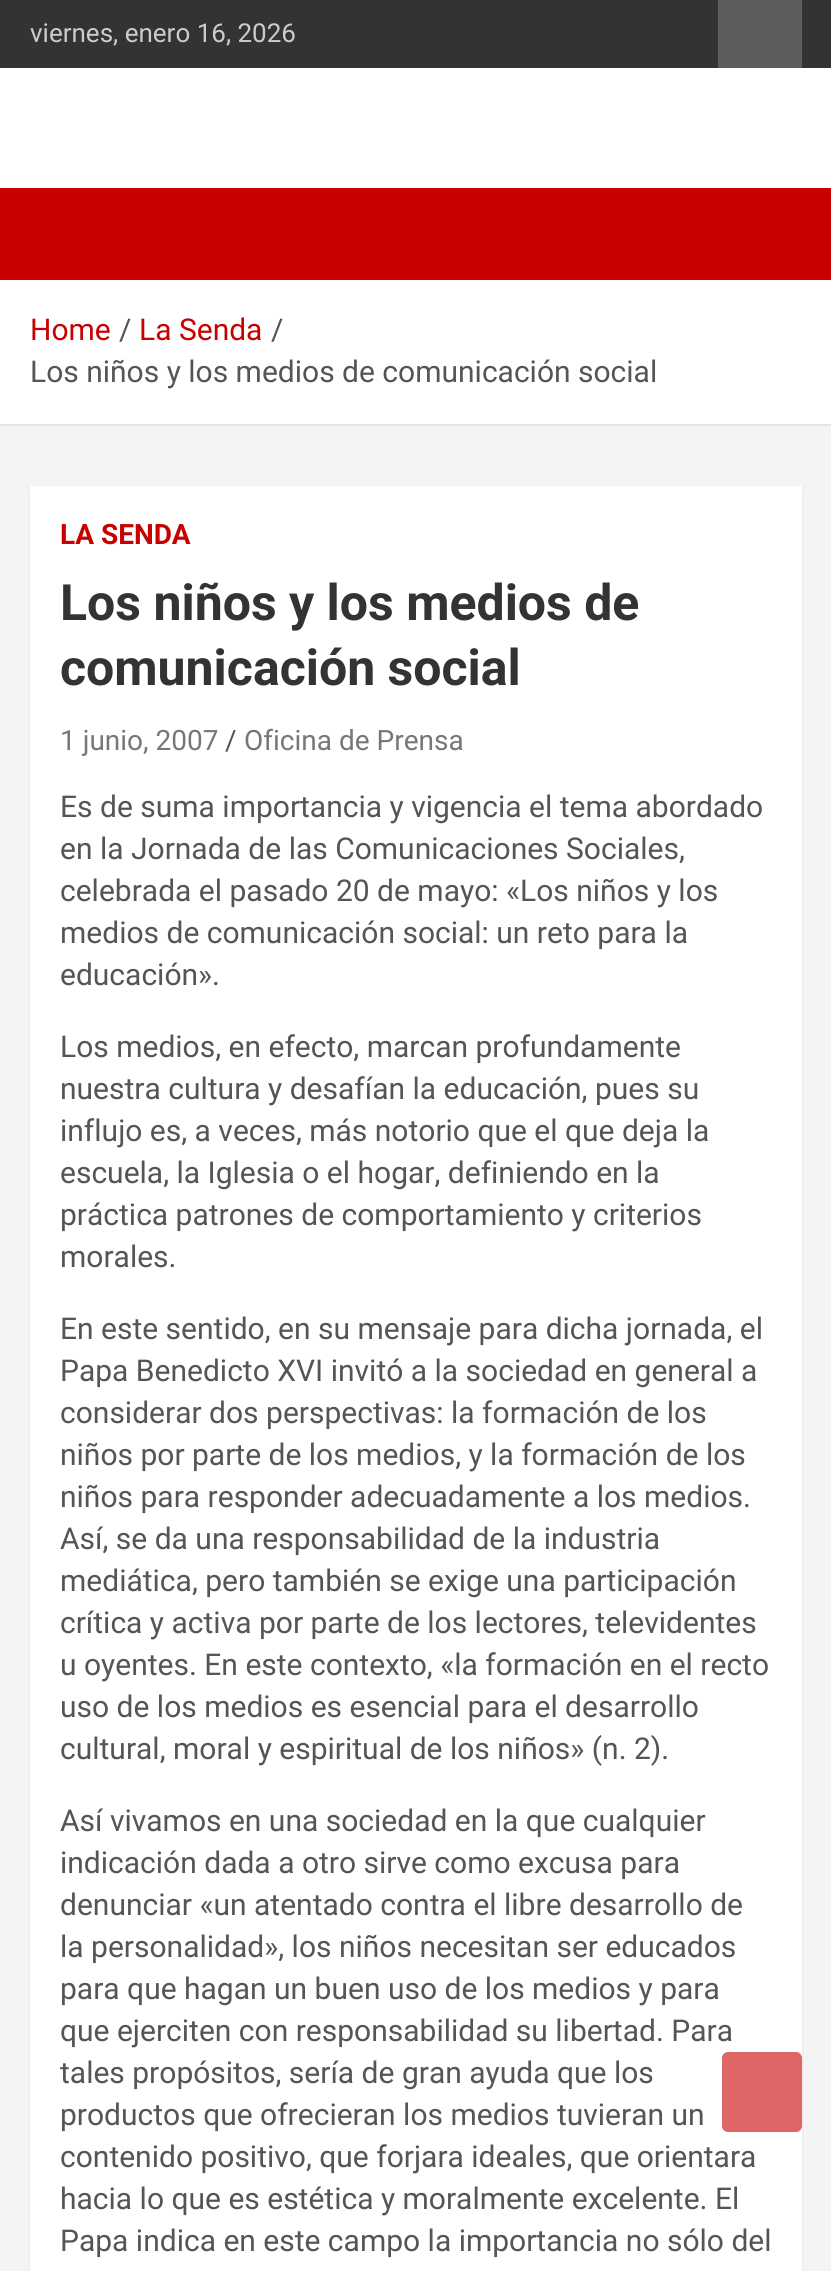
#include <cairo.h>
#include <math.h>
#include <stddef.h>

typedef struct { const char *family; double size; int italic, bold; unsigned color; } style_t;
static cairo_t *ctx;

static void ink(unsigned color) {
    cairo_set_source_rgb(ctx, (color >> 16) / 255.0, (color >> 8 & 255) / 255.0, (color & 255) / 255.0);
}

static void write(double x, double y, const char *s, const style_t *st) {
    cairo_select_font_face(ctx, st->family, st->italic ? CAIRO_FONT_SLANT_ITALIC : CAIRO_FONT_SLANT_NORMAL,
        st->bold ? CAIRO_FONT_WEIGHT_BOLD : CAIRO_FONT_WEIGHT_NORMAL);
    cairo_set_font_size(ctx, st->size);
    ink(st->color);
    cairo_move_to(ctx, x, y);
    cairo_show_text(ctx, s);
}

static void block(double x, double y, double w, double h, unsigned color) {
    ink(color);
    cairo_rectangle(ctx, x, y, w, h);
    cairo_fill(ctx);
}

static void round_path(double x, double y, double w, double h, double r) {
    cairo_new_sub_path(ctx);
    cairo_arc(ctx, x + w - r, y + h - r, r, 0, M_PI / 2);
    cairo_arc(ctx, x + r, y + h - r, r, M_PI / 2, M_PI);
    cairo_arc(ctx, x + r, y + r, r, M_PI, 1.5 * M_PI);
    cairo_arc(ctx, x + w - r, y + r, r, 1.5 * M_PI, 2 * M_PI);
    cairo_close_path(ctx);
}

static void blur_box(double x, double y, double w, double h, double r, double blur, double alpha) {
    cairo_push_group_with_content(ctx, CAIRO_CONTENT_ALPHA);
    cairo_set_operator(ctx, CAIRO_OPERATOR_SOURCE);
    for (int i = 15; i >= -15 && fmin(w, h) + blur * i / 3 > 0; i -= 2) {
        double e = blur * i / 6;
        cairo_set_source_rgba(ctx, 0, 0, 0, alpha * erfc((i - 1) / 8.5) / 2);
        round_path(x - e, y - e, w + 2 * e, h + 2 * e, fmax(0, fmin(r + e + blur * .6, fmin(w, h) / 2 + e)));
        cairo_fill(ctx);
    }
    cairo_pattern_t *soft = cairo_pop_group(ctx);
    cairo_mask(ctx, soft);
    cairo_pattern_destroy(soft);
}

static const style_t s1 = {"Roboto", 26, 0, 0, 0xcccccc};
static const style_t s2 = {"Roboto", 30, 0, 0, 0xc80000};
static const style_t s3 = {"Roboto", 30, 0, 0, 0x555555};
static const style_t s4 = {"Roboto", 28, 0, 1, 0xc80000};
static const style_t s5 = {"Roboto", 50, 0, 1, 0x333333};
static const style_t s6 = {"Roboto", 28, 0, 0, 0x777777};
static const style_t s7 = {"Roboto", 28, 0, 0, 0x555555};

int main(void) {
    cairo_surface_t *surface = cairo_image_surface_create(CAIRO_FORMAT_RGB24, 831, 2271);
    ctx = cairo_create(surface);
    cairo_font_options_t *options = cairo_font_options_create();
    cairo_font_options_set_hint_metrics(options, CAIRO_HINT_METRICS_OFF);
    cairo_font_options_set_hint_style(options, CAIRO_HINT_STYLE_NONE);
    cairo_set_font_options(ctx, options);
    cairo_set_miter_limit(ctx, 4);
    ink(0xf4f4f4);
    cairo_paint(ctx);
    block(0, 0, 831, 68, 0x333333);
    write(30, 42, "viernes, enero 16, 2026", &s1);
    block(718, 0, 84, 68, 0x5c5c5c);
    block(0, 68, 831, 120, 0xffffff);
    block(0, 188, 831, 92, 0xc80000);
    block(0, 280, 831, 144, 0xffffff);
    block(0, 424, 831, 2, 0xe6e6e6);
    write(30, 340, "Home", &s2);
    write(119, 340, "/", &s3);
    write(139, 340, "La Senda", &s2);
    write(271, 340, "/", &s3);
    write(30, 382, "Los niños y los medios de comunicación social", &s3);
    ink(0x000000);
    blur_box(30, 488, 772, 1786, 0, 1, 0.1);
    block(30, 486, 772, 1785, 0xffffff);
    write(60, 544, "LA SENDA", &s4);
    write(60, 620, "Los niños y los medios de", &s5);
    write(60, 685, "comunicación social", &s5);
    write(60, 750, "1 junio, 2007", &s6);
    write(225, 750, "/", &s7);
    write(244, 750, "Oficina de Prensa", &s6);
    write(60, 817, "Es de suma importancia y vigencia el tema abordado", &s3);
    write(60, 859, "en la Jornada de las Comunicaciones Sociales,", &s3);
    write(60, 901, "celebrada el pasado 20 de mayo: «Los niños y los", &s3);
    write(60, 943, "medios de comunicación social: un reto para la", &s3);
    write(60, 985, "educación».", &s3);
    write(60, 1057, "Los medios, en efecto, marcan profundamente", &s3);
    write(60, 1099, "nuestra cultura y desafían la educación, pues su", &s3);
    write(60, 1141, "influjo es, a veces, más notorio que el que deja la", &s3);
    write(60, 1183, "escuela, la Iglesia o el hogar, definiendo en la", &s3);
    write(60, 1225, "práctica patrones de comportamiento y criterios", &s3);
    write(60, 1267, "morales.", &s3);
    write(60, 1339, "En este sentido, en su mensaje para dicha jornada, el", &s3);
    write(60, 1381, "Papa Benedicto XVI invitó a la sociedad en general a", &s3);
    write(60, 1423, "considerar dos perspectivas: la formación de los", &s3);
    write(60, 1465, "niños por parte de los medios, y la formación de los", &s3);
    write(60, 1507, "niños para responder adecuadamente a los medios.", &s3);
    write(60, 1549, "Así, se da una responsabilidad de la industria", &s3);
    write(60, 1591, "mediática, pero también se exige una participación", &s3);
    write(60, 1633, "crítica y activa por parte de los lectores, televidentes", &s3);
    write(60, 1675, "u oyentes. En este contexto, «la formación en el recto", &s3);
    write(60, 1717, "uso de los medios es esencial para el desarrollo", &s3);
    write(60, 1759, "cultural, moral y espiritual de los niños» (n. 2).", &s3);
    write(60, 1831, "Así vivamos en una sociedad en la que cualquier", &s3);
    write(60, 1873, "indicación dada a otro sirve como excusa para", &s3);
    write(60, 1915, "denunciar «un atentado contra el libre desarrollo de", &s3);
    write(60, 1957, "la personalidad», los niños necesitan ser educados", &s3);
    write(60, 1999, "para que hagan un buen uso de los medios y para", &s3);
    write(60, 2041, "que ejerciten con responsabilidad su libertad. Para", &s3);
    write(60, 2083, "tales propósitos, sería de gran ayuda que los", &s3);
    write(60, 2125, "productos que ofrecieran los medios tuvieran un", &s3);
    write(60, 2167, "contenido positivo, que forjara ideales, que orientara", &s3);
    write(60, 2209, "hacia lo que es estética y moralmente excelente. El", &s3);
    write(60, 2251, "Papa indica en este campo la importancia no sólo del", &s3);
    ink(0xde6666);
    round_path(722, 2052, 80, 80, 6);
    cairo_fill(ctx);
    cairo_surface_write_to_png(surface, "screenshot.png");
    cairo_font_options_destroy(options);
    cairo_destroy(ctx);
    cairo_surface_destroy(surface);
    return 0;
}
